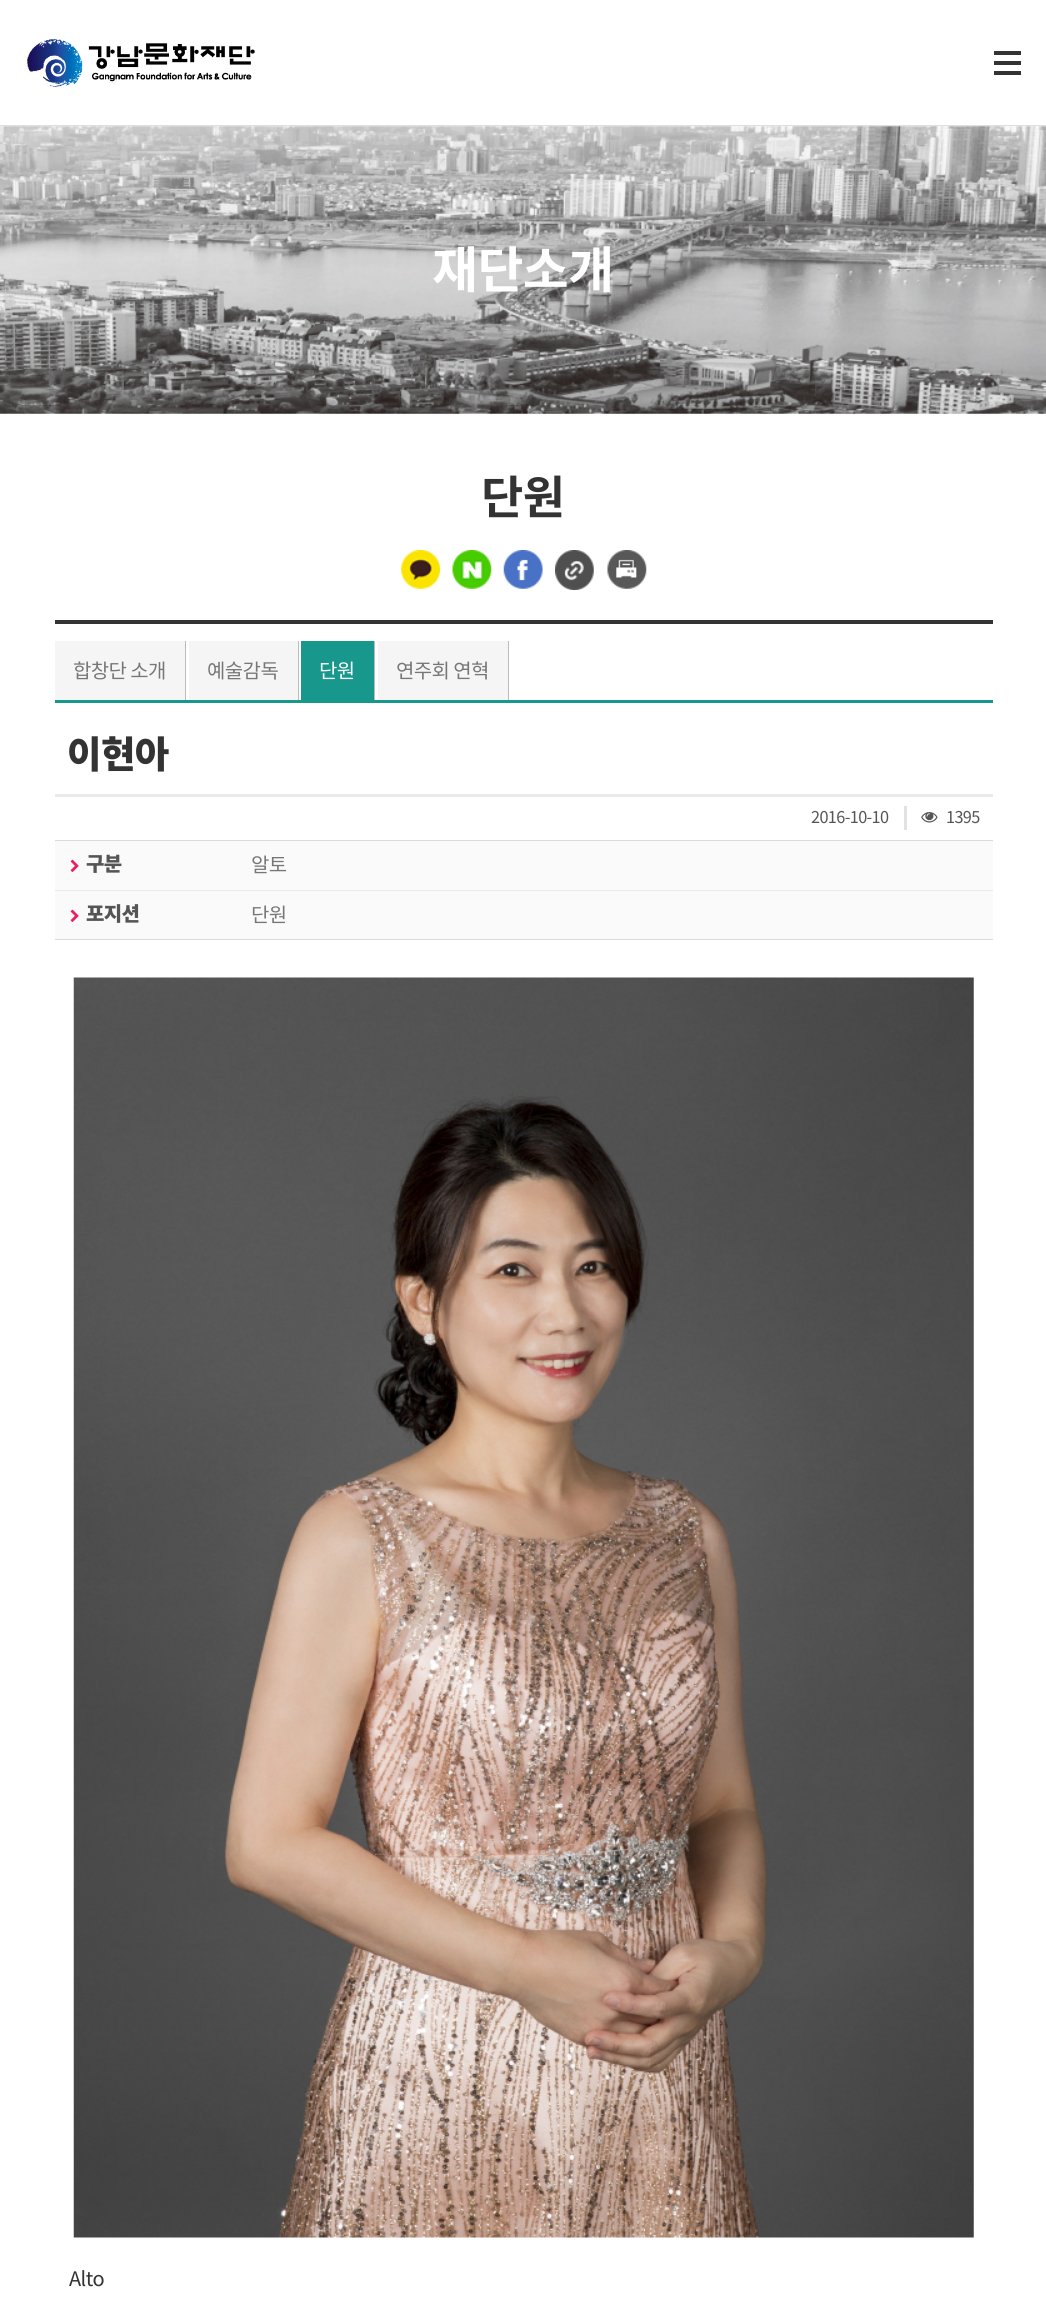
#include <cairo.h>
#include <math.h>
#include <stddef.h>

static cairo_t *ctx;

static void ink(unsigned color) {
    cairo_set_source_rgb(ctx, (color >> 16) / 255.0, (color >> 8 & 255) / 255.0, (color & 255) / 255.0);
}

static void write_spaced(double x, double y, const char *s, double letter, double word) {
    cairo_move_to(ctx, x, y);
    while (*s) {
        char ch[5] = {0};
        int n = 0;
        do ch[n++] = *s++; while ((*s & 0xC0) == 0x80);
        cairo_show_text(ctx, ch);
        cairo_rel_move_to(ctx, letter + word * (*ch == ' '), 0);
    }
}

static void block(double x, double y, double w, double h, unsigned color) {
    ink(color);
    cairo_rectangle(ctx, x, y, w, h);
    cairo_fill(ctx);
}

static void paste(const char *path, double x, double y, double w, double h) {
    cairo_surface_t *image = cairo_image_surface_create_from_png(path);
    cairo_save(ctx);
    cairo_set_source_surface(ctx, image, x, y);
    cairo_rectangle(ctx, x, y, w, h);
    cairo_fill(ctx);
    cairo_restore(ctx);
    cairo_surface_destroy(image);
}

int main(void) {
    cairo_surface_t *surface = cairo_image_surface_create(CAIRO_FORMAT_RGB24, 1046, 2304);
    ctx = cairo_create(surface);
    cairo_font_options_t *options = cairo_font_options_create();
    cairo_font_options_set_hint_metrics(options, CAIRO_HINT_METRICS_OFF);
    cairo_font_options_set_hint_style(options, CAIRO_HINT_STYLE_NONE);
    cairo_set_font_options(ctx, options);
    cairo_set_miter_limit(ctx, 4);
    ink(0xffffff);
    cairo_paint(ctx);
    paste("pic1.png", 27, 39, 228, 48);
    block(994, 51, 27, 4, 0x333333);
    block(994, 61, 27, 4, 0x333333);
    block(994, 71, 27, 4, 0x333333);
    block(0, 125, 1046, 1, 0xdedede);
    paste("pic2.png", 0, 126, 1046, 288);
    cairo_select_font_face(ctx, "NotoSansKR", CAIRO_FONT_SLANT_NORMAL, CAIRO_FONT_WEIGHT_BOLD);
    cairo_set_font_size(ctx, 50);
    ink(0xffffff);
    write_spaced(432, 288, "재단소개", -0.6, 0);
    cairo_set_font_size(ctx, 46);
    ink(0x333333);
    write_spaced(481, 514, "단원", -0.6, 0);
    paste("pic3.png", 401, 550, 39, 39);
    paste("pic4.png", 452, 550, 40, 39);
    paste("pic5.png", 503, 550, 40, 39);
    paste("pic6.png", 555, 550, 39, 40);
    paste("pic7.png", 607, 550, 40, 39);
    block(55, 620, 938, 4, 0x333333);
    block(55, 700, 938, 3, 0x18978c);
    block(55, 641, 130, 59, 0xf5f5f5);
    block(185, 641, 1, 59, 0xbbbbbb);
    cairo_select_font_face(ctx, "NotoSansKR", CAIRO_FONT_SLANT_NORMAL, CAIRO_FONT_WEIGHT_NORMAL);
    cairo_set_font_size(ctx, 20);
    ink(0x777777);
    write_spaced(73, 678, "합창단 소개", -0.6, 0);
    block(189, 641, 109, 59, 0xf5f5f5);
    block(298, 641, 1, 59, 0xbbbbbb);
    ink(0x777777);
    write_spaced(207, 678, "예술감독", -0.6, 0);
    block(374, 641, 1, 59, 0xbbbbbb);
    block(301, 641, 73, 59, 0x18978c);
    ink(0xffffff);
    write_spaced(319, 678, "단원", -0.6, 0);
    block(378, 641, 130, 59, 0xf5f5f5);
    block(508, 641, 1, 59, 0xbbbbbb);
    ink(0x777777);
    write_spaced(396, 678, "연주회 연혁", -0.6, 0);
    block(55, 794, 938, 3, 0xeaeaea);
    cairo_select_font_face(ctx, "NotoSansKR Black", CAIRO_FONT_SLANT_NORMAL, CAIRO_FONT_WEIGHT_NORMAL);
    cairo_set_font_size(ctx, 37.5);
    ink(0x333333);
    write_spaced(67, 768, "이현아", -0.6, 0);
    block(55, 840, 938, 1, 0xdadada);
    block(904, 806, 3, 24, 0xe2e2e2);
    cairo_select_font_face(ctx, "NotoSansKR", CAIRO_FONT_SLANT_NORMAL, CAIRO_FONT_WEIGHT_NORMAL);
    cairo_set_font_size(ctx, 16.25);
    ink(0x555555);
    write_spaced(811, 823, "2016-10-10", -0.6, 0);
    paste("pic8.png", 921, 812, 17, 11);
    write_spaced(946, 823, "1395", -0.6, 0);
    block(55, 841, 938, 98, 0xfafafa);
    block(55, 939, 938, 1, 0xdadada);
    block(55, 890, 938, 1, 0xeaeaea);
    paste("pic9.png", 70, 859, 9, 13);
    cairo_select_font_face(ctx, "NotoSansKR Black", CAIRO_FONT_SLANT_NORMAL, CAIRO_FONT_WEIGHT_NORMAL);
    cairo_set_font_size(ctx, 20);
    ink(0x555555);
    write_spaced(86, 871, "구분", -0.6, 0);
    cairo_select_font_face(ctx, "NotoSansKR", CAIRO_FONT_SLANT_NORMAL, CAIRO_FONT_WEIGHT_NORMAL);
    ink(0x777777);
    write_spaced(251, 872, "알토", -0.6, 0);
    paste("pic9.png", 70, 909, 9, 13);
    cairo_select_font_face(ctx, "NotoSansKR Black", CAIRO_FONT_SLANT_NORMAL, CAIRO_FONT_WEIGHT_NORMAL);
    ink(0x555555);
    write_spaced(86, 921, "포지션", -0.6, 0);
    cairo_select_font_face(ctx, "NotoSansKR", CAIRO_FONT_SLANT_NORMAL, CAIRO_FONT_WEIGHT_NORMAL);
    ink(0x777777);
    write_spaced(251, 922, "단원", -0.6, 0);
    paste("pic10.png", 73, 977, 901, 1261);
    ink(0x333333);
    write_spaced(69, 2286, "Alto", -0.6, 0);
    cairo_surface_write_to_png(surface, "screenshot.png");
    cairo_font_options_destroy(options);
    cairo_destroy(ctx);
    cairo_surface_destroy(surface);
    return 0;
}
